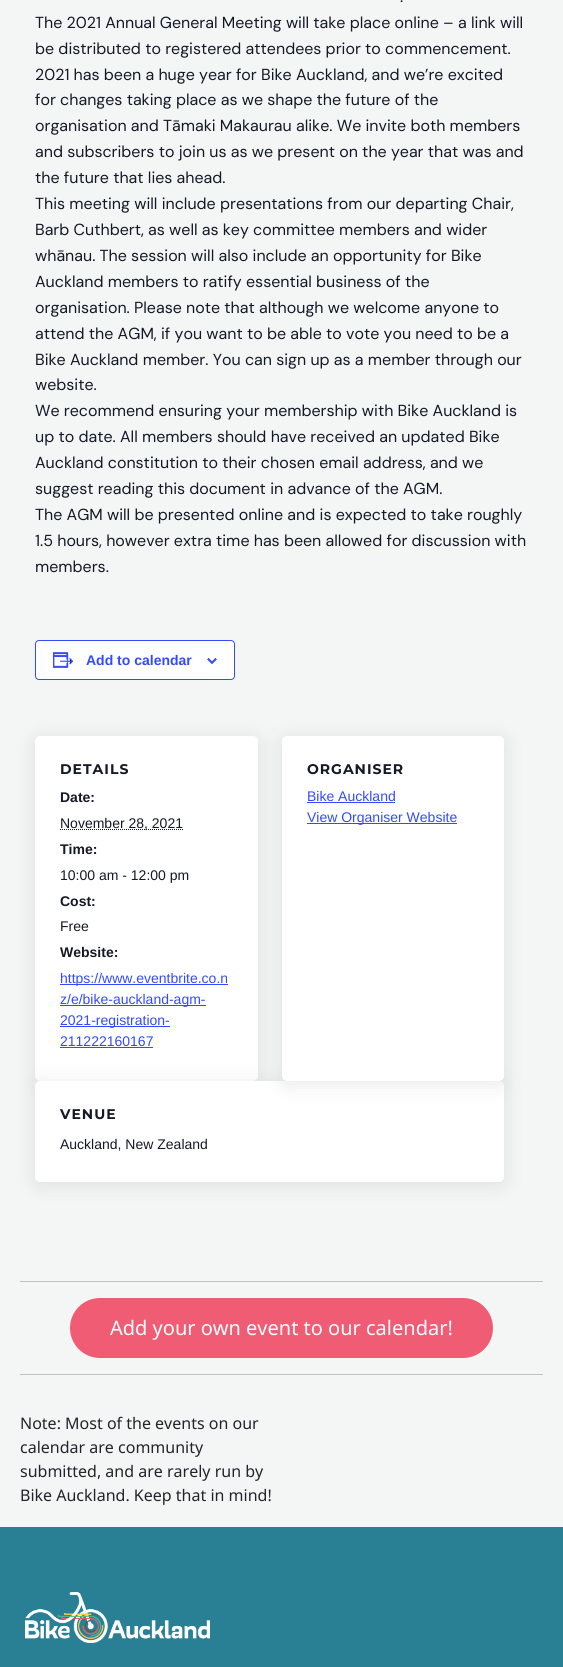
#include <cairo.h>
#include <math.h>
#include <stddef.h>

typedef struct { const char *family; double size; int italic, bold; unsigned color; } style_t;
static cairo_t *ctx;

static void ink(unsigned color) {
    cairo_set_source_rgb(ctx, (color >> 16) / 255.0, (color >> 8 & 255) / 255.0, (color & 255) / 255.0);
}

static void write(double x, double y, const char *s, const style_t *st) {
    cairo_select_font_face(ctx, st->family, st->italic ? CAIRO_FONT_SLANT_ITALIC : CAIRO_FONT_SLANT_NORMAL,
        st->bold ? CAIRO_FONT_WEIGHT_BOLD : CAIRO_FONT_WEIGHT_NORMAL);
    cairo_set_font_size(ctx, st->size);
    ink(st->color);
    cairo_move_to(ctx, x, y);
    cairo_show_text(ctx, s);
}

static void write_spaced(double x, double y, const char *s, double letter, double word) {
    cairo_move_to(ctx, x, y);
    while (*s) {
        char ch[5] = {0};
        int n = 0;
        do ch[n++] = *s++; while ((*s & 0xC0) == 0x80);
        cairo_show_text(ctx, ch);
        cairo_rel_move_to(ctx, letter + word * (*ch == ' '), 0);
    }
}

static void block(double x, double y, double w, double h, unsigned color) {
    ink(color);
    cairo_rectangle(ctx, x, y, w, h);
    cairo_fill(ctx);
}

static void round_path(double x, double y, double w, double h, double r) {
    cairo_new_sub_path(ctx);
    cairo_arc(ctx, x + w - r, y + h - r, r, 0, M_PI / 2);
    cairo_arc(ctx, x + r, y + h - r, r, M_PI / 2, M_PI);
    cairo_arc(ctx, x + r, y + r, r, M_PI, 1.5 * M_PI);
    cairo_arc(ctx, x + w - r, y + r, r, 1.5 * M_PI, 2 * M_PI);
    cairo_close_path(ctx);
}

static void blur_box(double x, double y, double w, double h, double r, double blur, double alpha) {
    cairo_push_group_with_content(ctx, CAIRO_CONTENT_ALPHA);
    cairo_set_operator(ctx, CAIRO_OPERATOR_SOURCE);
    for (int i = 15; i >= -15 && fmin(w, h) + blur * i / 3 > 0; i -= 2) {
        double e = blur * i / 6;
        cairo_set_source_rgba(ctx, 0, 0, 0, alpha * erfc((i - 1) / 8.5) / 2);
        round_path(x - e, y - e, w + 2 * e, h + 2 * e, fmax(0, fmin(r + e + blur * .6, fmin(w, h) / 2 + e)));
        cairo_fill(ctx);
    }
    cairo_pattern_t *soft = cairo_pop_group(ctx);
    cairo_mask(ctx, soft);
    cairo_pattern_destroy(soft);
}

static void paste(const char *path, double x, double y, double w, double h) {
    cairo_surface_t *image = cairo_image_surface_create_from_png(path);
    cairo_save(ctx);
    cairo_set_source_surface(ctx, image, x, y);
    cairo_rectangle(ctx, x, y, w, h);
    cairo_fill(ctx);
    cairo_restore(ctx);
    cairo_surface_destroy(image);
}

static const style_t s1 = {"DM Sans", 16, 0, 0, 0x141827};
static const style_t s2 = {"Liberation Sans", 14, 0, 1, 0x334aff};
static const style_t s3 = {"Liberation Sans", 14, 0, 1, 0x141827};
static const style_t s4 = {"Liberation Sans", 14, 0, 0, 0x141827};
static const style_t s5 = {"Liberation Sans", 14, 0, 0, 0x334aff};
static const style_t s6 = {"Noto Sans", 20, 0, 0, 0xffffff};
static const style_t s7 = {"Noto Sans", 16, 0, 0, 0x212529};

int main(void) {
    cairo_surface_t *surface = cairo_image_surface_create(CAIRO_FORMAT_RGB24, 563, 1667);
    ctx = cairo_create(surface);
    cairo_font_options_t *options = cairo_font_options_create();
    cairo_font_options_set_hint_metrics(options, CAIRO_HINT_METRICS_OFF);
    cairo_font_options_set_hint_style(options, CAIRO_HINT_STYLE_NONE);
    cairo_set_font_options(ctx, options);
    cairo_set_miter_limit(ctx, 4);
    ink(0xf4f6f6);
    cairo_paint(ctx);
    write(400, 2, ".", &s1);
    write(35, 28, "The 2021 Annual General Meeting will take place online – a link will", &s1);
    write(35, 54, "be distributed to registered attendees prior to commencement.", &s1);
    write(35, 80, "2021 has been a huge year for Bike Auckland, and we’re excited", &s1);
    write(35, 105, "for changes taking place as we shape the future of the", &s1);
    write(35, 131, "organisation and Tāmaki Makaurau alike. We invite both members", &s1);
    write(35, 157, "and subscribers to join us as we present on the year that was and", &s1);
    write(35, 183, "the future that lies ahead.", &s1);
    write(35, 209, "This meeting will include presentations from our departing Chair,", &s1);
    write(35, 235, "Barb Cuthbert, as well as key committee members and wider", &s1);
    write(35, 261, "whānau. The session will also include an opportunity for Bike", &s1);
    write(35, 287, "Auckland members to ratify essential business of the", &s1);
    write(35, 313, "organisation. Please note that although we welcome anyone to", &s1);
    write(35, 339, "attend the AGM, if you want to be able to vote you need to be a", &s1);
    write(35, 365, "Bike Auckland member. You can sign up as a member through our", &s1);
    write(35, 390, "website.", &s1);
    write(35, 416, "We recommend ensuring your membership with Bike Auckland is", &s1);
    write(35, 442, "up to date. All members should have received an updated Bike", &s1);
    write(35, 468, "Auckland constitution to their chosen email address, and we", &s1);
    write(35, 494, "suggest reading this document in advance of the AGM.", &s1);
    write(35, 520, "The AGM will be presented online and is expected to take roughly", &s1);
    write(35, 546, "1.5 hours, however extra time has been allowed for discussion with", &s1);
    write(35, 572, "members.", &s1);
    ink(0xffffff);
    round_path(35.5, 640.5, 199, 39, 3.5);
    cairo_fill_preserve(ctx);
    ink(0x334aff);
    cairo_set_line_width(ctx, 1);
    cairo_stroke(ctx);
    paste("pic1.png", 53, 652, 21, 16);
    write(86, 665, "Add to calendar", &s2);
    paste("pic2.png", 207, 658, 10, 6);
    ink(0x626262);
    blur_box(35, 739, 223, 345, 5, 10, 0.16);
    ink(0xffffff);
    round_path(35, 736, 223, 345, 5);
    cairo_fill(ctx);
    cairo_select_font_face(ctx, "Montserrat", CAIRO_FONT_SLANT_NORMAL, CAIRO_FONT_WEIGHT_BOLD);
    ink(0x141827);
    write_spaced(60, 774, "DETAILS", 1, 0);
    write(60, 802, "Date:", &s3);
    cairo_new_path(ctx);
    cairo_move_to(ctx, 60, 829.5);
    cairo_line_to(ctx, 183, 829.5);
    cairo_set_dash(ctx, (double[]){1, 1}, 2, 0);
    cairo_stroke(ctx);
    write(60, 828, "November 28, 2021", &s4);
    write(60, 854, "Time:", &s3);
    write(60, 880, "10:00 am - 12:00 pm", &s4);
    write(60, 906, "Cost:", &s3);
    write(60, 931, "Free", &s4);
    write(60, 957, "Website:", &s3);
    block(60, 984, 168, 1, 0x334aff);
    write(60, 983, "https://www.eventbrite.co.n", &s5);
    block(60, 1005, 146, 1, 0x334aff);
    write(60, 1004, "z/e/bike-auckland-agm-", &s5);
    block(60, 1026, 110, 1, 0x334aff);
    write(60, 1025, "2021-registration-", &s5);
    write(60, 1046, "211222160167", &s5);
    block(60, 1047, 93, 1, 0x334aff);
    ink(0x626262);
    blur_box(35, 1084, 469, 101, 5, 10, 0.16);
    ink(0xffffff);
    round_path(35, 1081, 469, 101, 5);
    cairo_fill(ctx);
    ink(0x626262);
    blur_box(282, 739, 222, 345, 5, 10, 0.16);
    ink(0xffffff);
    round_path(282, 736, 222, 345, 5);
    cairo_fill(ctx);
    cairo_select_font_face(ctx, "Montserrat", CAIRO_FONT_SLANT_NORMAL, CAIRO_FONT_WEIGHT_BOLD);
    ink(0x141827);
    write_spaced(307, 774, "ORGANISER", 1, 0);
    write(307, 801, "Bike Auckland", &s5);
    block(307, 802, 88, 1, 0x334aff);
    block(307, 823, 150, 1, 0x334aff);
    write(307, 822, "View Organiser Website", &s5);
    cairo_select_font_face(ctx, "Montserrat", CAIRO_FONT_SLANT_NORMAL, CAIRO_FONT_WEIGHT_BOLD);
    ink(0x141827);
    write_spaced(60, 1119, "VENUE", 1, 0);
    write(60, 1149, "Auckland, New Zealand", &s4);
    block(20, 1281, 523, 1, 0xbfc2c3);
    ink(0xef5c74);
    round_path(70, 1298, 423, 60, 30);
    cairo_fill(ctx);
    write(110, 1335, "Add your own event to our calendar!", &s6);
    block(20, 1374, 523, 1, 0xbfc2c3);
    write(20, 1429, "Note: Most of the events on our", &s7);
    write(20, 1453, "calendar are community", &s7);
    write(20, 1477, "submitted, and are rarely run by", &s7);
    write(20, 1501, "Bike Auckland. Keep that in mind!", &s7);
    block(0, 1527, 563, 140, 0x298095);
    paste("pic3.png", 25, 1592, 185, 51);
    cairo_surface_write_to_png(surface, "screenshot.png");
    cairo_font_options_destroy(options);
    cairo_destroy(ctx);
    cairo_surface_destroy(surface);
    return 0;
}
